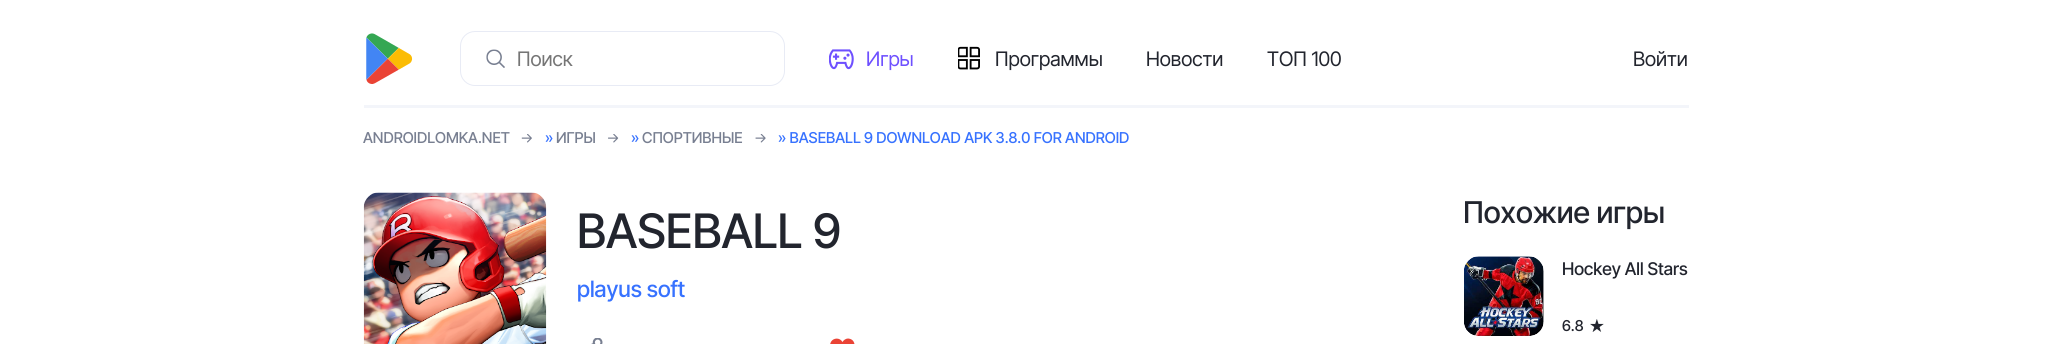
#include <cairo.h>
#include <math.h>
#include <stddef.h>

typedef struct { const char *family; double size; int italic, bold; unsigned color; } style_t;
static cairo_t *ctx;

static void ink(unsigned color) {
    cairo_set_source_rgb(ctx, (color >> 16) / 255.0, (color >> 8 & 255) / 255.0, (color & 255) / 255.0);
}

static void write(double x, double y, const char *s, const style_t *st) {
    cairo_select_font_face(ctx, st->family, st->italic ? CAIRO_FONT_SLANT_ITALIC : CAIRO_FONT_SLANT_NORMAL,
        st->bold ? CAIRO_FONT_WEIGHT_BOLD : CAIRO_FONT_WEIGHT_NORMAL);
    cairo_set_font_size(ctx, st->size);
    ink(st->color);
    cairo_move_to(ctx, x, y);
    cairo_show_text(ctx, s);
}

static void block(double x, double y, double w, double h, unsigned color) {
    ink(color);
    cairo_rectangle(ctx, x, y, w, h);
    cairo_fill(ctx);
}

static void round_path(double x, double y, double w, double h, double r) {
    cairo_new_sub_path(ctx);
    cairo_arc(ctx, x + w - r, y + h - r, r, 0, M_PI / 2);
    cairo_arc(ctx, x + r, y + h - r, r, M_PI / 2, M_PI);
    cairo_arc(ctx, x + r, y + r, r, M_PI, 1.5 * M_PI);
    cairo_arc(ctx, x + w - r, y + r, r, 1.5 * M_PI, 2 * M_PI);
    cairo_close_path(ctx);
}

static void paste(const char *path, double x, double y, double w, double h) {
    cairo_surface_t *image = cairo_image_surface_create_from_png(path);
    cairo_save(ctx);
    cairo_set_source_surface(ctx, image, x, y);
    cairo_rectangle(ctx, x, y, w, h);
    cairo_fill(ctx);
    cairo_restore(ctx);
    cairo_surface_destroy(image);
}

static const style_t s1 = {"Inter Tight", 20, 0, 0, 0x757575};
static const style_t s2 = {"Inter Tight", 20, 0, 0, 0x6e50ff};
static const style_t s3 = {"Inter Tight", 20, 0, 0, 0x22252e};
static const style_t s4 = {"Inter Tight Medium", 15, 0, 0, 0x787f91};
static const style_t s5 = {"Inter Tight Medium", 15, 0, 0, 0x3772ff};
static const style_t s6 = {"Inter Tight Medium", 47.5, 0, 0, 0x22252e};
static const style_t s7 = {"Inter Tight Medium", 22.5, 0, 0, 0x3772ff};
static const style_t s8 = {"Inter Tight Medium", 30, 0, 0, 0x22252e};
static const style_t s9 = {"Inter Tight Medium", 17.5, 0, 0, 0x22252e};
static const style_t s10 = {"Inter Tight Medium", 15, 0, 0, 0x22252e};

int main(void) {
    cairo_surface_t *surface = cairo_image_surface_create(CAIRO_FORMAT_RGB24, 2051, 344);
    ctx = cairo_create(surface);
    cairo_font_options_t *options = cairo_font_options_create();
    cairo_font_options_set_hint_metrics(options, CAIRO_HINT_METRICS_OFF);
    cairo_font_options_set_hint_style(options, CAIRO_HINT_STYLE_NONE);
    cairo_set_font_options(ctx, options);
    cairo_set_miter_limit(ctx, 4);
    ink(0xffffff);
    cairo_paint(ctx);
    block(364, 105, 1325, 3, 0xf3f5fa);
    paste("pic1.png", 366, 33, 47, 51);
    paste("pic2.png", 486, 49, 19, 19);
    round_path(460.5, 31.5, 324, 54, 14.5);
    ink(0xe8ebf5);
    cairo_set_line_width(ctx, 1);
    cairo_stroke(ctx);
    write(517, 66, "Поиск", &s1);
    paste("pic3.png", 829, 49, 25, 21);
    write(866, 66, "Игры", &s2);
    paste("pic4.png", 958, 46, 22, 24);
    write(995, 66, "Программы", &s3);
    write(1146, 66, "Новости", &s3);
    write(1267, 66, "ТОП 100", &s3);
    write(1633, 66, "Войти", &s3);
    write(363, 143, "ANDROIDLOMKA.NET", &s4);
    paste("pic5.png", 521, 134, 11, 9);
    write(545, 143, "»", &s5);
    write(556, 143, "ИГРЫ", &s4);
    paste("pic6.png", 608, 134, 11, 9);
    write(631, 143, "»", &s5);
    write(642, 143, "СПОРТИВНЫЕ", &s4);
    paste("pic7.png", 755, 134, 11, 9);
    write(778, 143, "» BASEBALL 9 DOWNLOAD APK 3.8.0 FOR ANDROID", &s5);
    paste("pic8.png", 363, 192, 184, 152);
    write(577, 248, "BASEBALL 9", &s6);
    write(577, 297, "playus soft", &s7);
    paste("pic9.png", 591, 338, 12, 6);
    ink(0xea4335);
    cairo_new_path(ctx);
    cairo_move_to(ctx, 848, 338.5);
    cairo_curve_to(ctx, 846, 338.5, 843.5, 340, 842.5, 342);
    cairo_curve_to(ctx, 837, 332.5, 817.5, 344, 842.5, 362);
    cairo_curve_to(ctx, 846.5, 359, 850.5, 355.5, 853, 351);
    cairo_curve_to(ctx, 856, 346, 855, 339, 848, 338.5);
    cairo_close_path(ctx);
    cairo_fill(ctx);
    write(1463, 223, "Похожие игры", &s8);
    paste("pic10.png", 1464, 256, 80, 80);
    cairo_save(ctx);
    cairo_rectangle(ctx, 1563, 256, 125, 25);
    cairo_clip(ctx);
    write(1562, 275, "Hockey All Stars", &s9);
    cairo_restore(ctx);
    write(1562, 331, "6.8", &s10);
    paste("pic11.png", 1590, 319, 14, 13);
    cairo_surface_write_to_png(surface, "screenshot.png");
    cairo_font_options_destroy(options);
    cairo_destroy(ctx);
    cairo_surface_destroy(surface);
    return 0;
}
